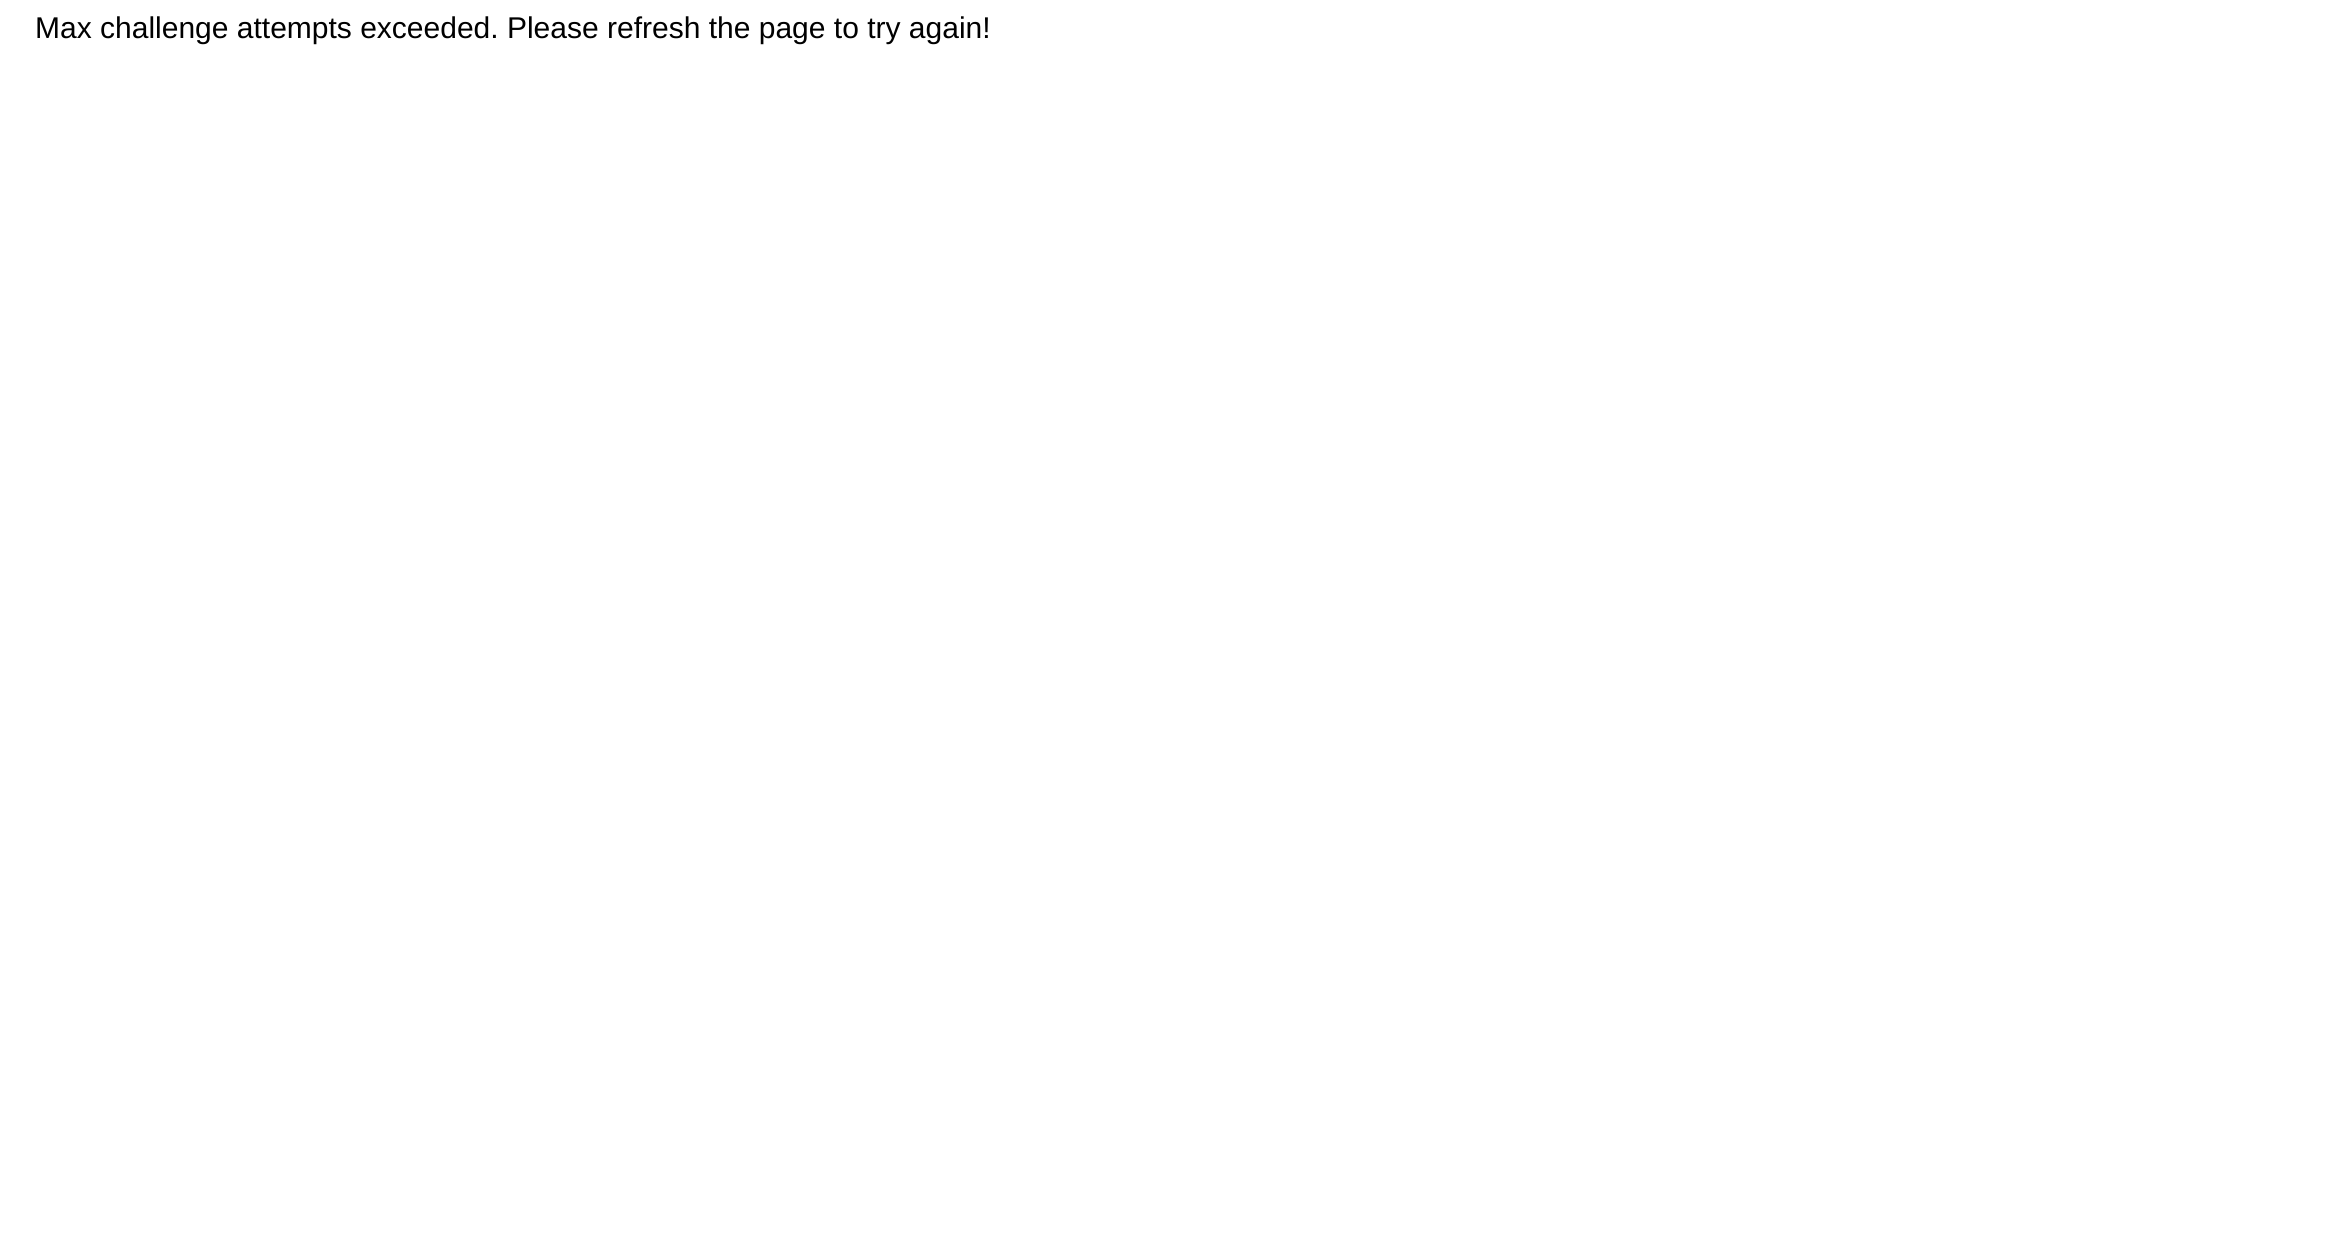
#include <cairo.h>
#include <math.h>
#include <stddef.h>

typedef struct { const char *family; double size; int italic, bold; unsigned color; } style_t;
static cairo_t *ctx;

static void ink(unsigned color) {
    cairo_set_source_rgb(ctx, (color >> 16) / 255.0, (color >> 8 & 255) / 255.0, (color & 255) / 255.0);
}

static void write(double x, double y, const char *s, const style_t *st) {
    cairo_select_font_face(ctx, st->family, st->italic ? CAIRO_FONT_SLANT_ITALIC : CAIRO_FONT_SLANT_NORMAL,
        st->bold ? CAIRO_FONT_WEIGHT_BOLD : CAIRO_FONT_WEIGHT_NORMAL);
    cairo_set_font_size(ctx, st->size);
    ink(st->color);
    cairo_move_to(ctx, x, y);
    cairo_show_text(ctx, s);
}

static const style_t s1 = {"Liberation Sans", 30, 0, 0, 0x000000};

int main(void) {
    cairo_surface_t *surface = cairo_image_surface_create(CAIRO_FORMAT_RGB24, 2338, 1246);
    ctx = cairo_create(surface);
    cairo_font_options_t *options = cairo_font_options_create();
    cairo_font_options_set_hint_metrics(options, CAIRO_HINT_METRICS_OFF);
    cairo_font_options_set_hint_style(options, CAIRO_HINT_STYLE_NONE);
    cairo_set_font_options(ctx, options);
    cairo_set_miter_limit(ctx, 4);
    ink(0xffffff);
    cairo_paint(ctx);
    write(35, 38, "Max challenge attempts exceeded. Please refresh the page to try again!", &s1);
    cairo_surface_write_to_png(surface, "screenshot.png");
    cairo_font_options_destroy(options);
    cairo_destroy(ctx);
    cairo_surface_destroy(surface);
    return 0;
}
